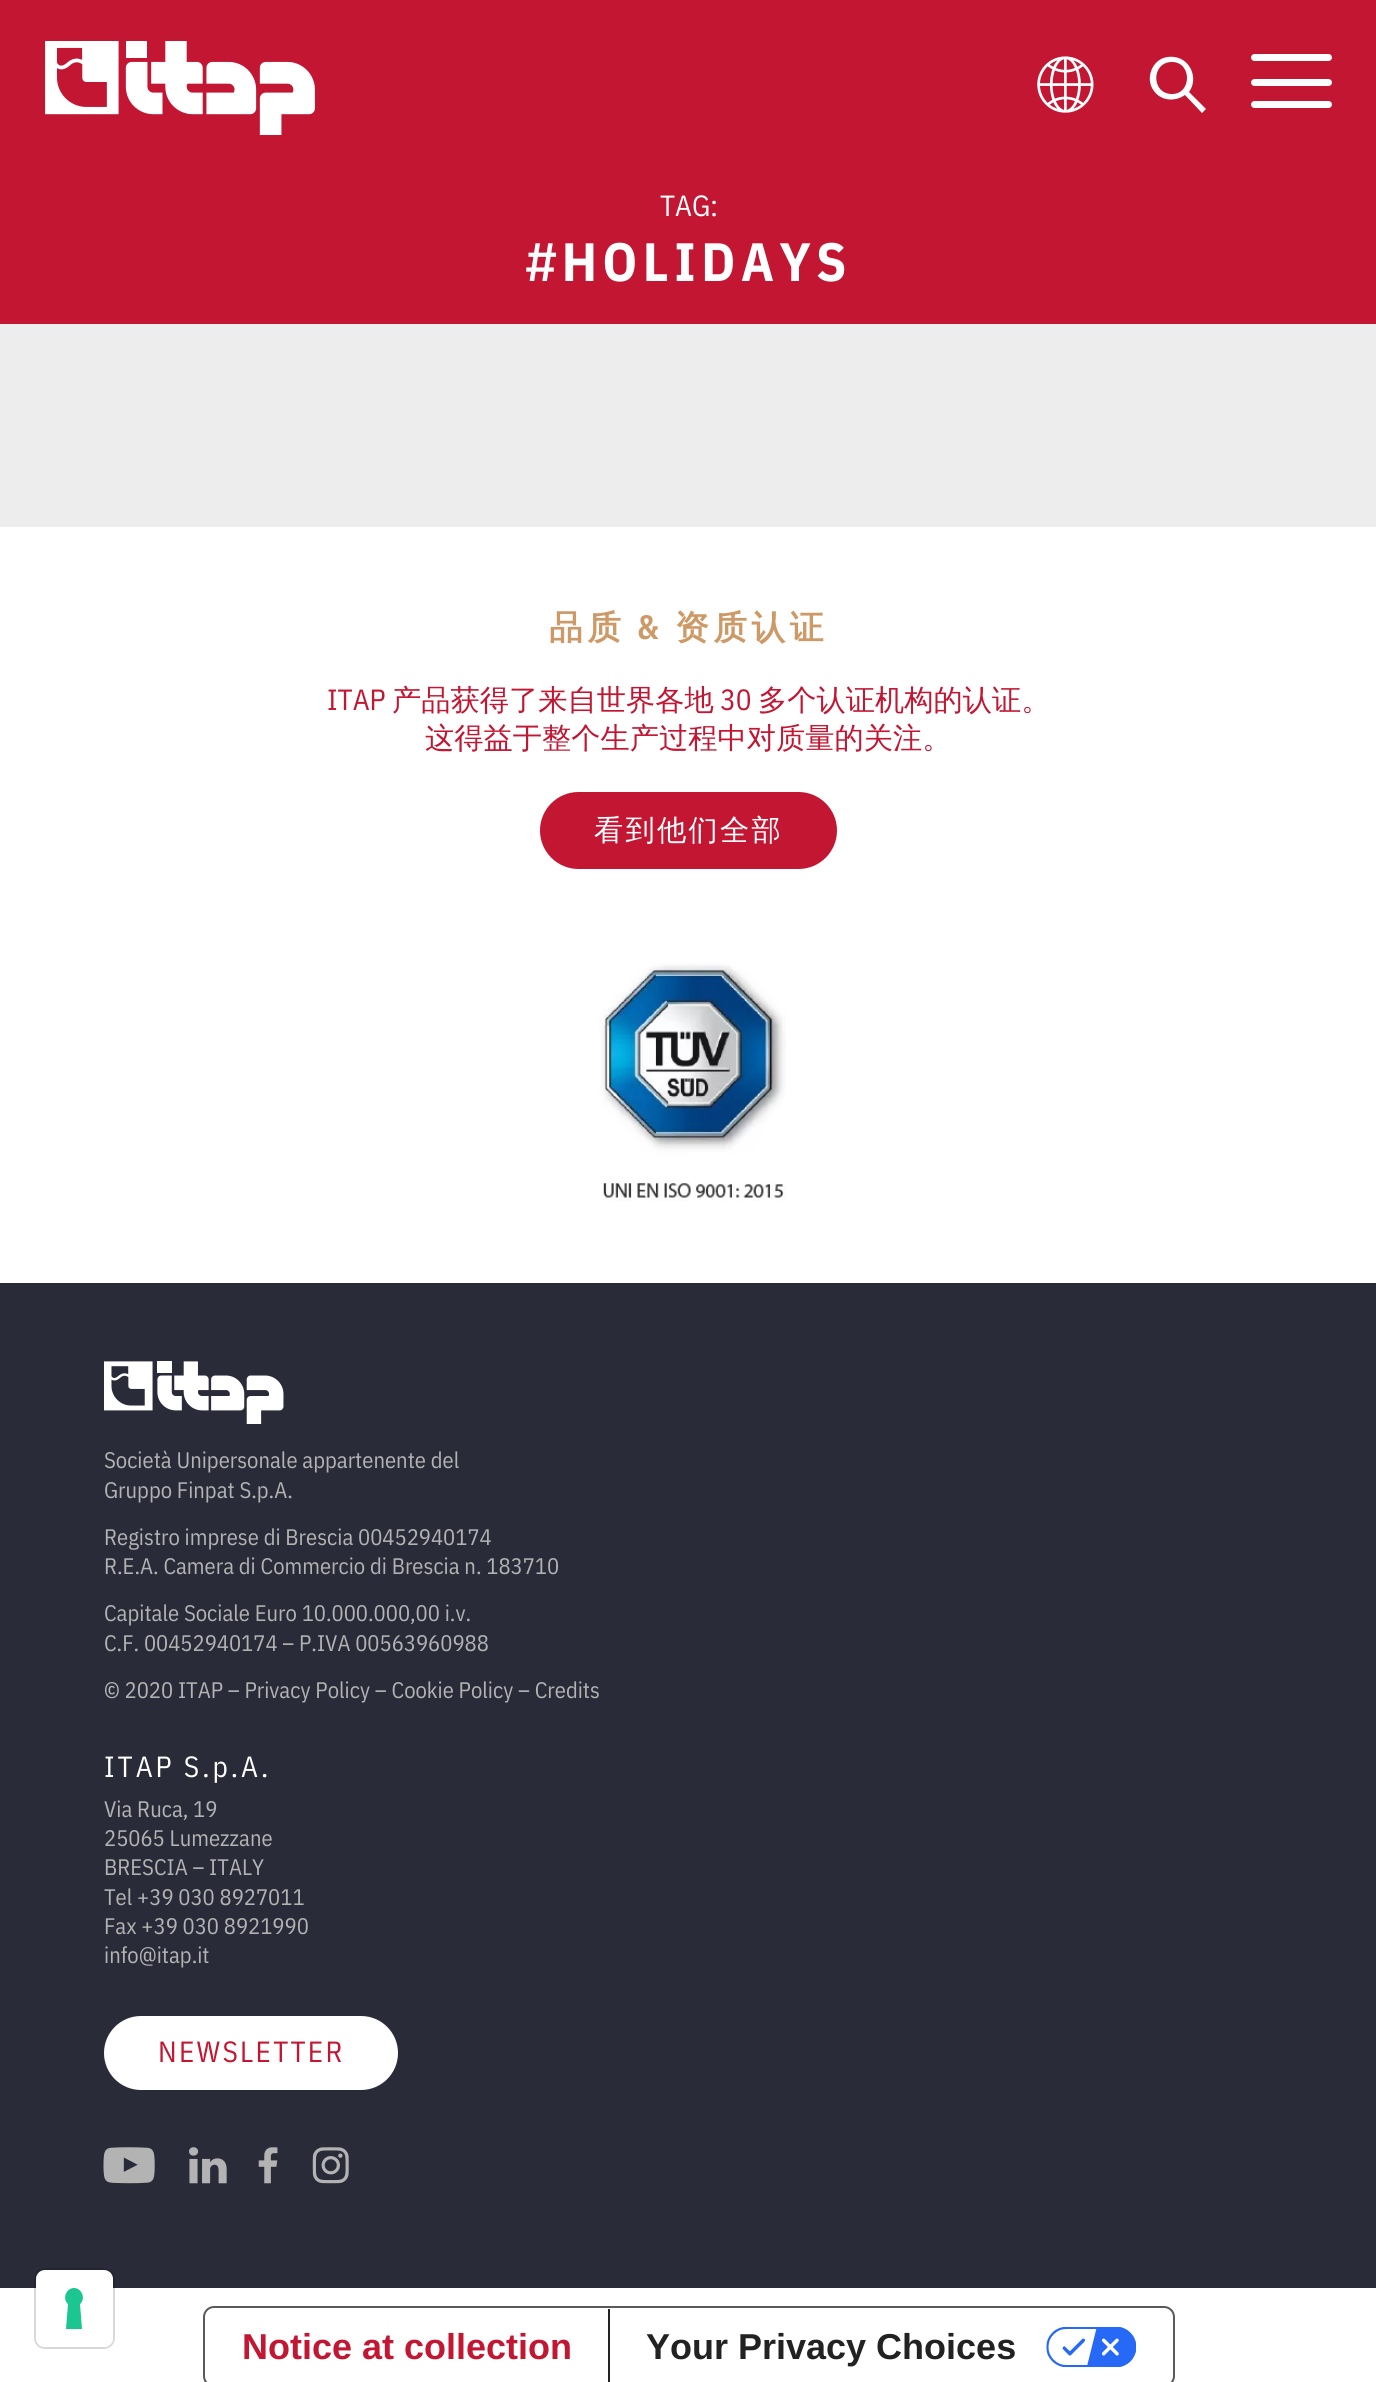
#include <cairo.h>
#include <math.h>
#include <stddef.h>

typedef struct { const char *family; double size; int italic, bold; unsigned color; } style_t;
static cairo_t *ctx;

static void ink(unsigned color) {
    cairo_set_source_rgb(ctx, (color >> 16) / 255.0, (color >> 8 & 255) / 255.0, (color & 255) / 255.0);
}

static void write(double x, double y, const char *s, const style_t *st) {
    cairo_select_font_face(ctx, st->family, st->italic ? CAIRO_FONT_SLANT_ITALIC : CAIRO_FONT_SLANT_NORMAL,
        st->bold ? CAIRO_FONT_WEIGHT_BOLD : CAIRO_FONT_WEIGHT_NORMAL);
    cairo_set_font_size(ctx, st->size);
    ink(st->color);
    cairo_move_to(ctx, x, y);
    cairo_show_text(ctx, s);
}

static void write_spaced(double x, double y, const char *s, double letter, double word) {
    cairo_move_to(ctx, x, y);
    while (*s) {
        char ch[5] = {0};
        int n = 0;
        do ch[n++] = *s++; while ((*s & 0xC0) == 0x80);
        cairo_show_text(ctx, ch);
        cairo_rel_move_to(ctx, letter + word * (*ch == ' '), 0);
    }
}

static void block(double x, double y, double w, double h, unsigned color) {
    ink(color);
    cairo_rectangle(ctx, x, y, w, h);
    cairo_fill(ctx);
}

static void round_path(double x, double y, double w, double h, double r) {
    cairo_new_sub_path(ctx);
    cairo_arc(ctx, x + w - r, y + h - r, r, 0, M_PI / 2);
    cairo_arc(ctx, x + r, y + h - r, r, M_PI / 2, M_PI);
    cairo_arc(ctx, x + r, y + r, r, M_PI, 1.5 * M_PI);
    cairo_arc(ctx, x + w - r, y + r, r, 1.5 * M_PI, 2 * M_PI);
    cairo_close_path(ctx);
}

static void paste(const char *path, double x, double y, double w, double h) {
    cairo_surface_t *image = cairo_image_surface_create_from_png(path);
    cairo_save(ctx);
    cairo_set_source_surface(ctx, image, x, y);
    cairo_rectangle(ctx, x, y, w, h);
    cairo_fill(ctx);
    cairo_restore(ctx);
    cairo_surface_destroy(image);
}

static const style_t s1 = {"IBM Plex Sans Condensed", 29.25, 0, 0, 0xffffff};
static const style_t s2 = {"IBM Plex Sans Condensed", 29.25, 0, 0, 0xc21632};
static const style_t s3 = {"WenQuanYi Zen Hei Medium", 29.25, 0, 0, 0xc21632};
static const style_t s4 = {"IBM Plex Sans Condensed", 22.5, 0, 0, 0xb3b3b3};
static const style_t s5 = {"Liberation Sans", 36, 0, 1, 0xc21632};
static const style_t s6 = {"Liberation Sans", 36, 0, 1, 0x222222};

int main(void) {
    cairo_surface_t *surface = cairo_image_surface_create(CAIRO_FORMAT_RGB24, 1376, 2382);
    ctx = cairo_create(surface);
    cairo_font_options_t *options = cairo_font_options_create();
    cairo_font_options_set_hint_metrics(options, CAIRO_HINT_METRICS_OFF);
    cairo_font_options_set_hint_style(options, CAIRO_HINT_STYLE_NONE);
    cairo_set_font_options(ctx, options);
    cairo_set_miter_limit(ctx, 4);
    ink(0xffffff);
    cairo_paint(ctx);
    block(0, 0, 1376, 324, 0xc21632);
    paste("pic1.png", 45, 41, 270, 94);
    paste("pic2.png", 1037, 56, 57, 57);
    ink(0xffffff);
    cairo_new_path(ctx);
    cairo_move_to(ctx, 1202, 113);
    cairo_line_to(ctx, 1185, 95);
    cairo_curve_to(ctx, 1175, 102, 1161, 101, 1154, 91);
    cairo_curve_to(ctx, 1146, 81, 1150, 65, 1161, 59);
    cairo_curve_to(ctx, 1167, 56, 1175, 56, 1181, 59);
    cairo_curve_to(ctx, 1193, 65, 1197, 81, 1189, 92);
    cairo_line_to(ctx, 1206, 109);
    cairo_close_path(ctx);
    cairo_move_to(ctx, 1172, 62);
    cairo_curve_to(ctx, 1151, 62, 1151, 94, 1172, 94);
    cairo_curve_to(ctx, 1192, 94, 1192, 62, 1172, 62);
    cairo_close_path(ctx);
    cairo_fill(ctx);
    round_path(1251, 54, 81, 7, 3.5);
    cairo_fill(ctx);
    round_path(1251, 79, 81, 7, 3.5);
    cairo_fill(ctx);
    round_path(1251, 101, 81, 7, 3.5);
    cairo_fill(ctx);
    block(0, 324, 1376, 203, 0xededed);
    write(660, 216, "TAG:", &s1);
    cairo_select_font_face(ctx, "IBM Plex Sans Condensed", CAIRO_FONT_SLANT_NORMAL, CAIRO_FONT_WEIGHT_BOLD);
    cairo_set_font_size(ctx, 54);
    write_spaced(526, 281, "#HOLIDAYS", 5.5, 0);
    cairo_select_font_face(ctx, "WenQuanYi Zen Hei", CAIRO_FONT_SLANT_NORMAL, CAIRO_FONT_WEIGHT_BOLD);
    cairo_set_font_size(ctx, 33.75);
    ink(0xcd9966);
    write_spaced(549, 639, "品质", 4.5, 0);
    cairo_select_font_face(ctx, "IBM Plex Sans Condensed SemiBold", CAIRO_FONT_SLANT_NORMAL, CAIRO_FONT_WEIGHT_NORMAL);
    write_spaced(637, 639, "&", 4.5, 0);
    cairo_select_font_face(ctx, "WenQuanYi Zen Hei", CAIRO_FONT_SLANT_NORMAL, CAIRO_FONT_WEIGHT_BOLD);
    write_spaced(675, 639, "资质认证", 4.5, 0);
    write(327, 710, "ITAP", &s2);
    write(392, 710, "产品获得了来自世界各地", &s3);
    write(720, 710, "30", &s2);
    write(758, 710, "多个认证机构的认证。", &s3);
    write(425, 748, "这得益于整个生产过程中对质量的关注。", &s3);
    round_path(540, 792, 297, 77, 38.5);
    cairo_fill(ctx);
    ink(0xffffff);
    write_spaced(594, 840, "看到他们全部", 2.25, 0);
    paste("pic3.png", 599, 963, 187, 238);
    block(0, 1283, 1376, 1005, 0x2a2b39);
    paste("pic4.png", 104, 1361, 180, 63);
    write(104, 1468, "Società Unipersonale appartenente del", &s4);
    write(104, 1498, "Gruppo Finpat S.p.A.", &s4);
    write(104, 1545, "Registro imprese di Brescia 00452940174", &s4);
    write(104, 1574, "R.E.A. Camera di Commercio di Brescia n. 183710", &s4);
    write(104, 1621, "Capitale Sociale Euro 10.000.000,00 i.v.", &s4);
    write(104, 1651, "C.F. 00452940174 – P.IVA 00563960988", &s4);
    write(104, 1698, "© 2020 ITAP – Privacy Policy – Cookie Policy – Credits", &s4);
    cairo_set_font_size(ctx, 29.25);
    ink(0xffffff);
    write_spaced(104, 1777, "ITAP S.p.A.", 3, 0);
    write(104, 1817, "Via Ruca, 19", &s4);
    write(104, 1846, "25065 Lumezzane", &s4);
    write(104, 1875, "BRESCIA – ITALY", &s4);
    write(104, 1905, "Tel +39 030 8927011", &s4);
    write(104, 1934, "Fax +39 030 8921990", &s4);
    write(104, 1963, "info@itap.it", &s4);
    ink(0xffffff);
    round_path(104, 2016, 294, 74, 37);
    cairo_fill(ctx);
    cairo_set_font_size(ctx, 29.25);
    ink(0xc21632);
    write_spaced(158, 2062, "NEWSLETTER", 2.25, 0);
    paste("pic5.png", 103, 2147, 52, 37);
    paste("pic6.png", 189, 2147, 38, 37);
    paste("pic7.png", 258, 2147, 20, 37);
    paste("pic8.png", 312, 2147, 37, 37);
    round_path(35, 2269, 79, 79, 10);
    cairo_set_source_rgba(ctx, 0, 0, 0, 0.15);
    cairo_stroke(ctx);
    ink(0xffffff);
    round_path(36, 2270, 77, 77, 9);
    cairo_fill(ctx);
    ink(0x1cc691);
    cairo_set_fill_rule(ctx, CAIRO_FILL_RULE_EVEN_ODD);
    cairo_new_path(ctx);
    cairo_move_to(ctx, 74, 2288);
    cairo_curve_to(ctx, 82, 2288, 86, 2299, 80, 2304);
    cairo_line_to(ctx, 82, 2329);
    cairo_line_to(ctx, 66, 2329);
    cairo_line_to(ctx, 68, 2304);
    cairo_curve_to(ctx, 62, 2299, 66, 2288, 74, 2288);
    cairo_close_path(ctx);
    cairo_fill(ctx);
    round_path(204, 2307, 970, 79, 10);
    ink(0x595959);
    cairo_stroke(ctx);
    write(242, 2359, "Notice at collection", &s5);
    block(608, 2309, 2, 73, 0x222222);
    write(646, 2359, "Your Privacy Choices", &s6);
    paste("pic9.png", 1046, 2327, 90, 40);
    cairo_surface_write_to_png(surface, "screenshot.png");
    cairo_font_options_destroy(options);
    cairo_destroy(ctx);
    cairo_surface_destroy(surface);
    return 0;
}
